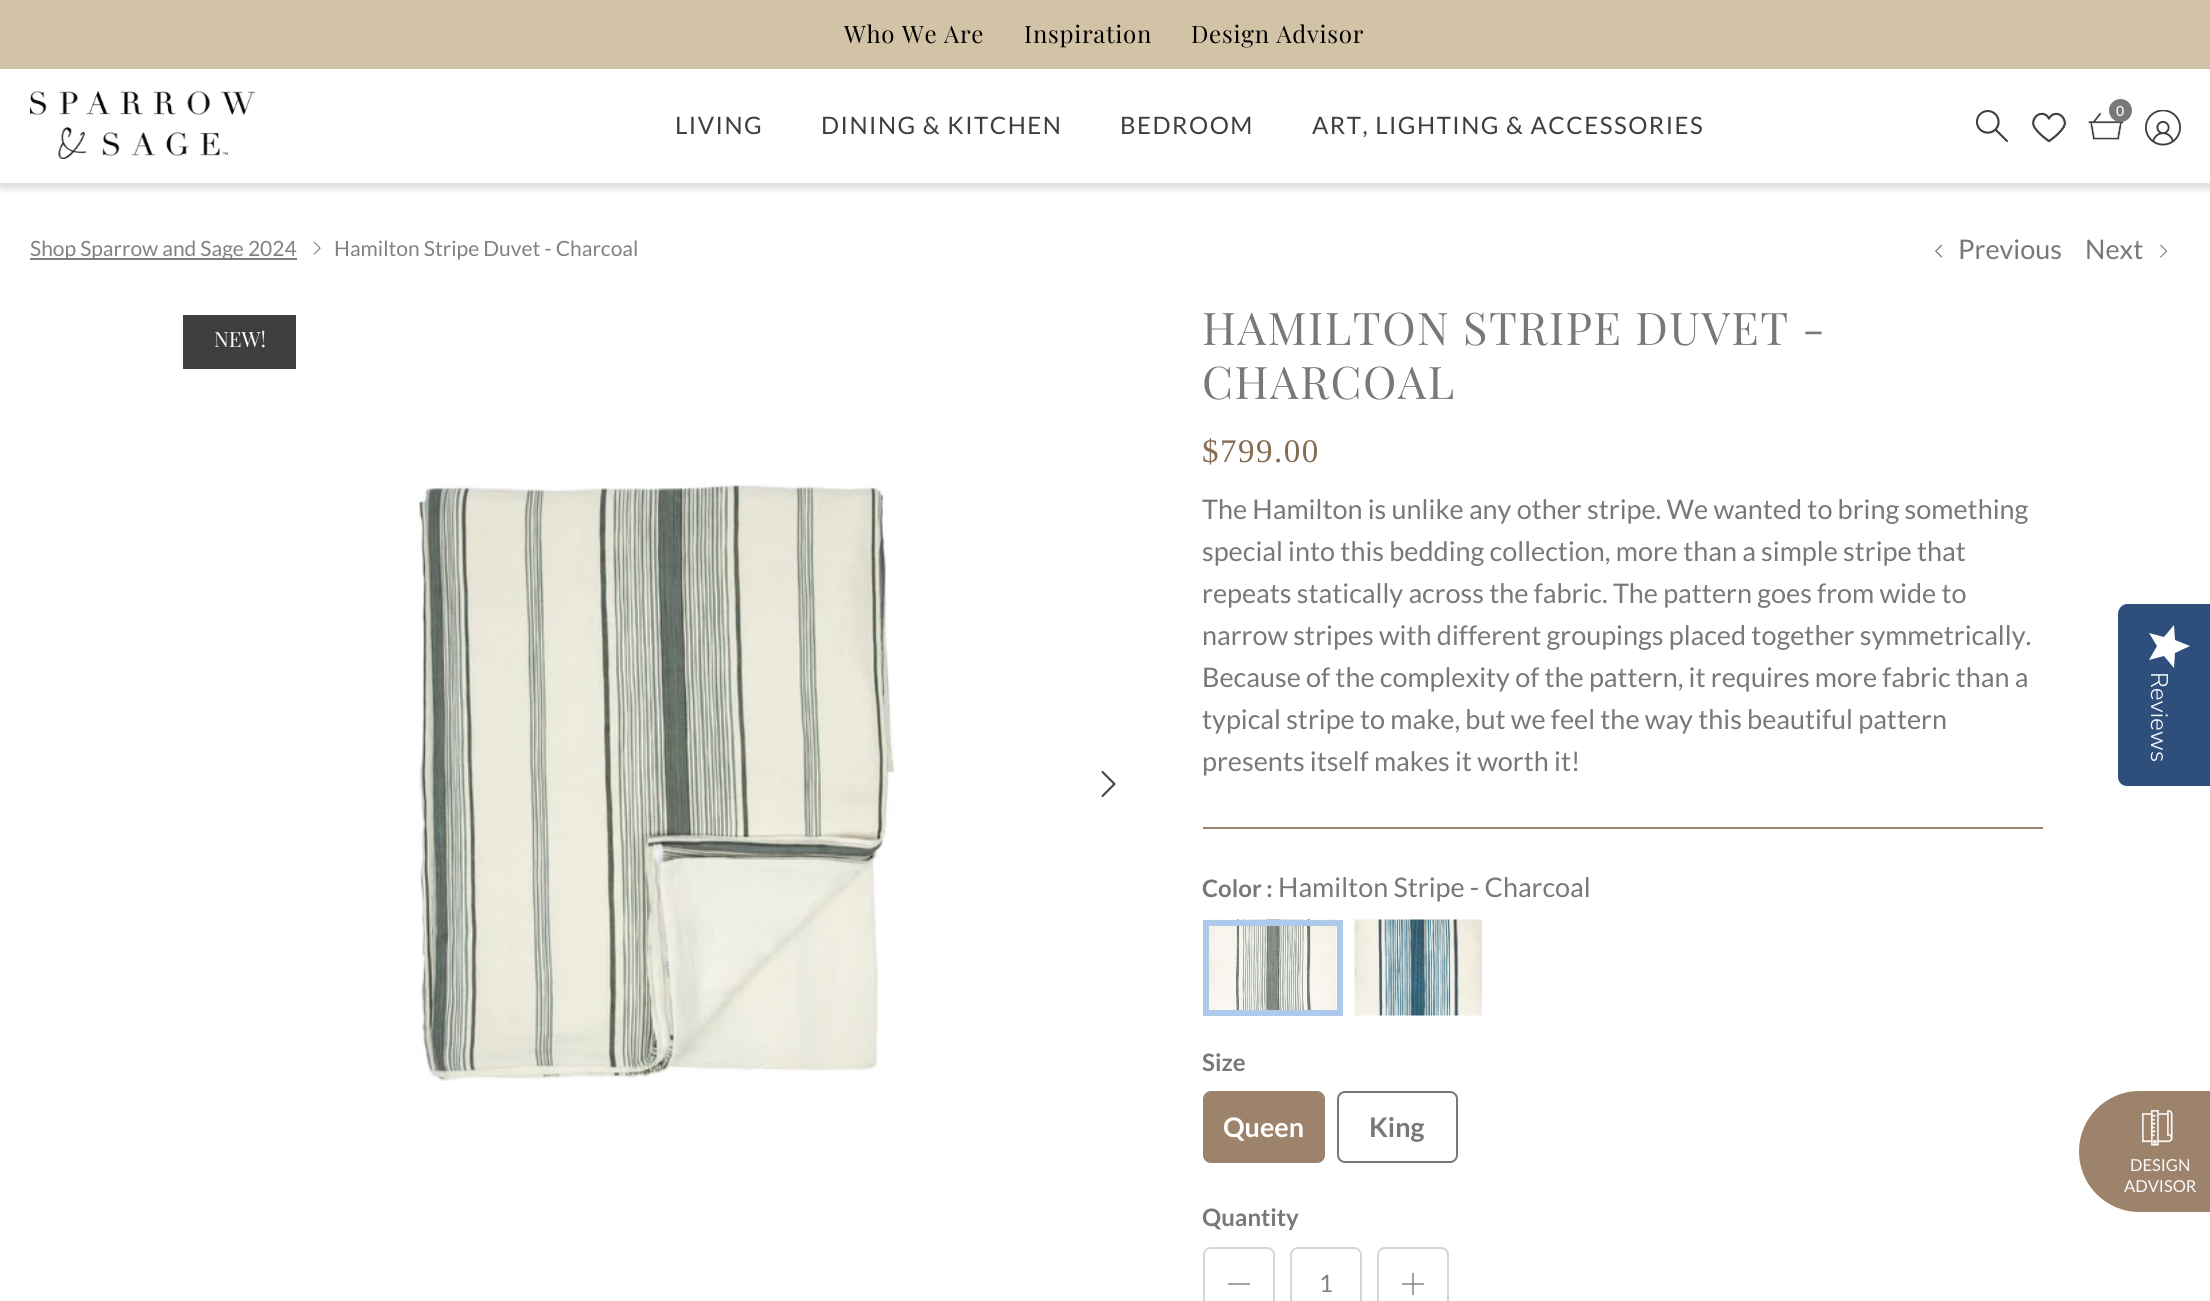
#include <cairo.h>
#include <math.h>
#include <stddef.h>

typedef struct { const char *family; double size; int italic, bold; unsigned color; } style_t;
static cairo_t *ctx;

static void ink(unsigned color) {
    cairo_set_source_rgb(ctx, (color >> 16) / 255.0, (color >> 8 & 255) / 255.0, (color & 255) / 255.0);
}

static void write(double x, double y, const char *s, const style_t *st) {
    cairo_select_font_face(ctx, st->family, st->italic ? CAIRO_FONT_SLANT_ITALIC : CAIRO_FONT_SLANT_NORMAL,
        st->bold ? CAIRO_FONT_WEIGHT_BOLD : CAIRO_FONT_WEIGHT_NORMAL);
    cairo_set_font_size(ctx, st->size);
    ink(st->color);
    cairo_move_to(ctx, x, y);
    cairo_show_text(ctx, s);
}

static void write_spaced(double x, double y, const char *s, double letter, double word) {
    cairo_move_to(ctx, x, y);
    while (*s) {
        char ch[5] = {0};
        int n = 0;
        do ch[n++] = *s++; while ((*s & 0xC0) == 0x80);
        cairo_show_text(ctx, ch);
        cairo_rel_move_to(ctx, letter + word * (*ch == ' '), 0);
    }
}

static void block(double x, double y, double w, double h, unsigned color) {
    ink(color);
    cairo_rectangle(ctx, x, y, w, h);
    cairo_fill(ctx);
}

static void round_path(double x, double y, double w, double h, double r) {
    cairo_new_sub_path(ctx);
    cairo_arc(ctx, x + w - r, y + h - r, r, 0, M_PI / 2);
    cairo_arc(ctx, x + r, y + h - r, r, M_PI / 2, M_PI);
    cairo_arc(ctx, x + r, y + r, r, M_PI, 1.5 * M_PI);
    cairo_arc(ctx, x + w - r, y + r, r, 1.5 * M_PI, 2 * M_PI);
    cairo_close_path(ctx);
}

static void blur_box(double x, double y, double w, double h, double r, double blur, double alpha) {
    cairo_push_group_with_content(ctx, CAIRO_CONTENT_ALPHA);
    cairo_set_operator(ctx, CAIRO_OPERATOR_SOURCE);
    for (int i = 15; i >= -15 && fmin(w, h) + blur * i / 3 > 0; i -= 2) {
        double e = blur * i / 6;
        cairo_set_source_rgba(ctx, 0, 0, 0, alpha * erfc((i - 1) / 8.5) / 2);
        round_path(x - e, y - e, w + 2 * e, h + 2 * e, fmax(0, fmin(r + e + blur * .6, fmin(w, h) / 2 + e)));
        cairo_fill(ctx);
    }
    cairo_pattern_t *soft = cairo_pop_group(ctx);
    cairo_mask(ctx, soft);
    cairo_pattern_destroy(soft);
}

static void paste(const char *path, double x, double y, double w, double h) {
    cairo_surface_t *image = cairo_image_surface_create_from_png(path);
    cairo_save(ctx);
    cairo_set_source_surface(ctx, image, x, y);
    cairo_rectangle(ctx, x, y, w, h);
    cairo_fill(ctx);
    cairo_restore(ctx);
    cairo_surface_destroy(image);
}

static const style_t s1 = {"Lato Medium", 14, 0, 0, 0xffffff};
static const style_t s2 = {"Lato", 21, 0, 0, 0x818181};
static const style_t s3 = {"Lato", 27, 0, 0, 0x787879};
static const style_t s4 = {"Playfair Display", 21, 0, 0, 0xffffff};
static const style_t s5 = {"Lato", 24, 0, 1, 0x787879};
static const style_t s6 = {"Lato", 27, 0, 1, 0xffffff};
static const style_t s7 = {"Lato", 27, 0, 1, 0x787879};
static const style_t s8 = {"Lato", 24, 0, 0, 0x818181};
static const style_t s9 = {"Nunito Sans Light", 24, 0, 0, 0xffffff};
static const style_t s10 = {"Lato", 16.5, 0, 0, 0xfaf9fa};

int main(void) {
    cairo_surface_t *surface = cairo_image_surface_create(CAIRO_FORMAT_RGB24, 2210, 1301);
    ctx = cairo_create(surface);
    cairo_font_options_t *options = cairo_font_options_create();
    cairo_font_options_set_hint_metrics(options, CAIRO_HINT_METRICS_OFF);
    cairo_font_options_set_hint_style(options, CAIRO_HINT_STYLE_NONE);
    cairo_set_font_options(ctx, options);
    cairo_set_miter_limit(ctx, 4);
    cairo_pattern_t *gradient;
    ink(0xffffff);
    cairo_paint(ctx);
    cairo_save(ctx);
    cairo_rectangle(ctx, 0, 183, 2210, 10);
    cairo_clip(ctx);
    ink(0x000000);
    blur_box(0, 74, 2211, 114, 0, 4.5, 0.16);
    cairo_restore(ctx);
    block(0, 0, 2210, 69, 0xd2c3a6);
    cairo_select_font_face(ctx, "Playfair Display", CAIRO_FONT_SLANT_NORMAL, CAIRO_FONT_WEIGHT_NORMAL);
    cairo_set_font_size(ctx, 24);
    ink(0x000000);
    write_spaced(844, 43, "Who We Are", 0.75, 0);
    write_spaced(1024, 43, "Inspiration", 0.75, 0);
    write_spaced(1191, 43, "Design Advisor", 0.75, 0);
    paste("pic1.png", 30, 91, 225, 68);
    paste("pic2.png", 1975, 110, 33, 33);
    paste("pic3.png", 2031, 112, 36, 31);
    paste("pic4.png", 2088, 112, 36, 28);
    ink(0x787879);
    cairo_arc(ctx, 2120.5, 110.5, 11.5, 0, 2 * M_PI);
    cairo_fill(ctx);
    write(2116, 116, "0", &s1);
    paste("pic5.png", 2145, 110, 36, 36);
    cairo_select_font_face(ctx, "Lato", CAIRO_FONT_SLANT_NORMAL, CAIRO_FONT_WEIGHT_NORMAL);
    cairo_set_font_size(ctx, 24);
    ink(0x3e3e3e);
    write_spaced(675, 134, "LIVING", 1.5, 0);
    write_spaced(821, 134, "DINING & KITCHEN", 1.5, 0);
    write_spaced(1120, 134, "BEDROOM", 1.5, 0);
    write_spaced(1312, 134, "ART, LIGHTING & ACCESSORIES", 1.5, 0);
    block(30, 258, 267, 2, 0x818181);
    write(30, 256, "Shop Sparrow and Sage 2024", &s2);
    paste("pic6.png", 313, 242, 8, 13);
    write(334, 256, "Hamilton Stripe Duvet - Charcoal", &s2);
    paste("pic7.png", 1935, 245, 8, 13);
    write(1958, 259, "Previous", &s3);
    write(2085, 259, "Next", &s3);
    paste("pic8.png", 2160, 245, 8, 13);
    block(183, 315, 113, 54, 0x3e3e3e);
    write(214, 347, "NEW!", &s4);
    paste("pic9.png", 417, 483, 478, 598);
    cairo_new_path(ctx);
    cairo_move_to(ctx, 1102.5, 796);
    cairo_line_to(ctx, 1114.5, 784);
    cairo_line_to(ctx, 1102.5, 772);
    ink(0x3e3e3e);
    cairo_set_line_cap(ctx, CAIRO_LINE_CAP_ROUND);
    cairo_set_line_join(ctx, CAIRO_LINE_JOIN_ROUND);
    cairo_stroke(ctx);
    cairo_set_font_size(ctx, 45);
    ink(0x787879);
    write_spaced(1202, 345, "HAMILTON STRIPE DUVET -", 1.5, 0);
    write_spaced(1202, 399, "CHARCOAL", 1.5, 0);
    cairo_select_font_face(ctx, "Liberation Serif", CAIRO_FONT_SLANT_NORMAL, CAIRO_FONT_WEIGHT_NORMAL);
    cairo_set_font_size(ctx, 33);
    ink(0x866c53);
    write_spaced(1202, 462, "$799.00", 1.5, 0);
    write(1202, 519, "The Hamilton is unlike any other stripe. We wanted to bring something", &s3);
    write(1202, 561, "special into this bedding collection, more than a simple stripe that", &s3);
    write(1202, 603, "repeats statically across the fabric. The pattern goes from wide to", &s3);
    write(1202, 645, "narrow stripes with different groupings placed together symmetrically.", &s3);
    write(1202, 687, "Because of the complexity of the pattern, it requires more fabric than a", &s3);
    write(1202, 729, "typical stripe to make, but we feel the way this beautiful pattern", &s3);
    write(1202, 771, "presents itself makes it worth it!", &s3);
    block(1203, 827, 840, 2, 0x9d836b);
    write(1202, 897, "Color :", &s5);
    write(1278, 897, "Hamilton Stripe - Charcoal", &s3);
    paste("pic10.png", 1209, 919, 128, 91);
    cairo_rectangle(ctx, 1206, 923, 134, 90);
    ink(0xaecaea);
    cairo_set_line_width(ctx, 6);
    cairo_set_line_cap(ctx, CAIRO_LINE_CAP_BUTT);
    cairo_set_line_join(ctx, CAIRO_LINE_JOIN_MITER);
    cairo_stroke(ctx);
    paste("pic11.png", 1354, 919, 128, 97);
    write(1202, 1071, "Size", &s5);
    ink(0x9d836b);
    round_path(1204, 1092, 120, 70, 7);
    cairo_fill_preserve(ctx);
    cairo_set_line_width(ctx, 2);
    cairo_stroke(ctx);
    write(1223, 1137, "Queen", &s6);
    round_path(1338, 1092, 119, 70, 7);
    ink(0x787879);
    cairo_stroke(ctx);
    write(1369, 1137, "King", &s7);
    write(1202, 1226, "Quantity", &s5);
    round_path(1204, 1248, 70, 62, 7);
    ink(0xd5d6d6);
    cairo_stroke(ctx);
    cairo_new_path(ctx);
    cairo_move_to(ctx, 1228.5, 1284);
    cairo_line_to(ctx, 1249.5, 1284);
    ink(0x818181);
    cairo_set_line_width(ctx, 1.5);
    cairo_set_line_cap(ctx, CAIRO_LINE_CAP_ROUND);
    cairo_set_line_join(ctx, CAIRO_LINE_JOIN_ROUND);
    cairo_stroke(ctx);
    round_path(1291, 1248, 70, 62, 7);
    ink(0xd5d6d6);
    cairo_set_line_width(ctx, 2);
    cairo_set_line_cap(ctx, CAIRO_LINE_CAP_BUTT);
    cairo_set_line_join(ctx, CAIRO_LINE_JOIN_MITER);
    cairo_stroke(ctx);
    write(1319, 1292, "1", &s8);
    round_path(1378, 1248, 70, 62, 7);
    ink(0xd5d6d6);
    cairo_stroke(ctx);
    cairo_new_path(ctx);
    cairo_move_to(ctx, 1413, 1273.5);
    cairo_line_to(ctx, 1413, 1294.5);
    cairo_move_to(ctx, 1402.5, 1284);
    cairo_line_to(ctx, 1423.5, 1284);
    ink(0x818181);
    cairo_set_line_width(ctx, 1.5);
    cairo_set_line_cap(ctx, CAIRO_LINE_CAP_ROUND);
    cairo_set_line_join(ctx, CAIRO_LINE_JOIN_ROUND);
    cairo_stroke(ctx);
    ink(0x2e4f7c);
    cairo_new_path(ctx);
    cairo_move_to(ctx, 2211, 604);
    cairo_line_to(ctx, 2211, 786);
    cairo_line_to(ctx, 2127, 786);
    cairo_curve_to(ctx, 2122, 786, 2118, 782, 2118, 777);
    cairo_line_to(ctx, 2118, 614);
    cairo_curve_to(ctx, 2118, 609, 2122, 604, 2127, 604);
    cairo_close_path(ctx);
    cairo_fill(ctx);
    gradient = cairo_pattern_create_linear(2190, 625, 2190, 668);
    cairo_pattern_add_color_stop_rgba(gradient, 1, 1, 1, 1, 1);
    cairo_pattern_add_color_stop_rgba(gradient, 1, 0.918, 0.918, 0.918, 1);
    cairo_set_source(ctx, gradient);
    cairo_pattern_destroy(gradient);
    cairo_new_path(ctx);
    cairo_move_to(ctx, 2157, 646);
    cairo_line_to(ctx, 2149, 660);
    cairo_line_to(ctx, 2164, 656);
    cairo_line_to(ctx, 2174, 668);
    cairo_line_to(ctx, 2175, 653);
    cairo_line_to(ctx, 2190, 646);
    cairo_line_to(ctx, 2175, 640);
    cairo_line_to(ctx, 2174, 625);
    cairo_line_to(ctx, 2164, 637);
    cairo_line_to(ctx, 2149, 633);
    cairo_close_path(ctx);
    cairo_fill(ctx);
    cairo_save(ctx);
    cairo_translate(ctx, 2151, 672);
    cairo_rotate(ctx, 90 * M_PI / 180);
    write(0, 0, "Reviews", &s9);
    cairo_restore(ctx);
    ink(0x9d836b);
    cairo_new_path(ctx);
    cairo_move_to(ctx, 2139.5, 1091);
    cairo_line_to(ctx, 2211, 1091);
    cairo_line_to(ctx, 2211, 1212);
    cairo_line_to(ctx, 2139.5, 1212);
    cairo_curve_to(ctx, 2106, 1212, 2079, 1185, 2079, 1151.5);
    cairo_curve_to(ctx, 2079, 1118, 2106, 1091, 2139.5, 1091);
    cairo_close_path(ctx);
    cairo_fill(ctx);
    paste("pic12.png", 2142, 1110, 31, 36);
    write(2130, 1171, "DESIGN", &s10);
    write(2124, 1192, "ADVISOR", &s10);
    cairo_surface_write_to_png(surface, "screenshot.png");
    cairo_font_options_destroy(options);
    cairo_destroy(ctx);
    cairo_surface_destroy(surface);
    return 0;
}
